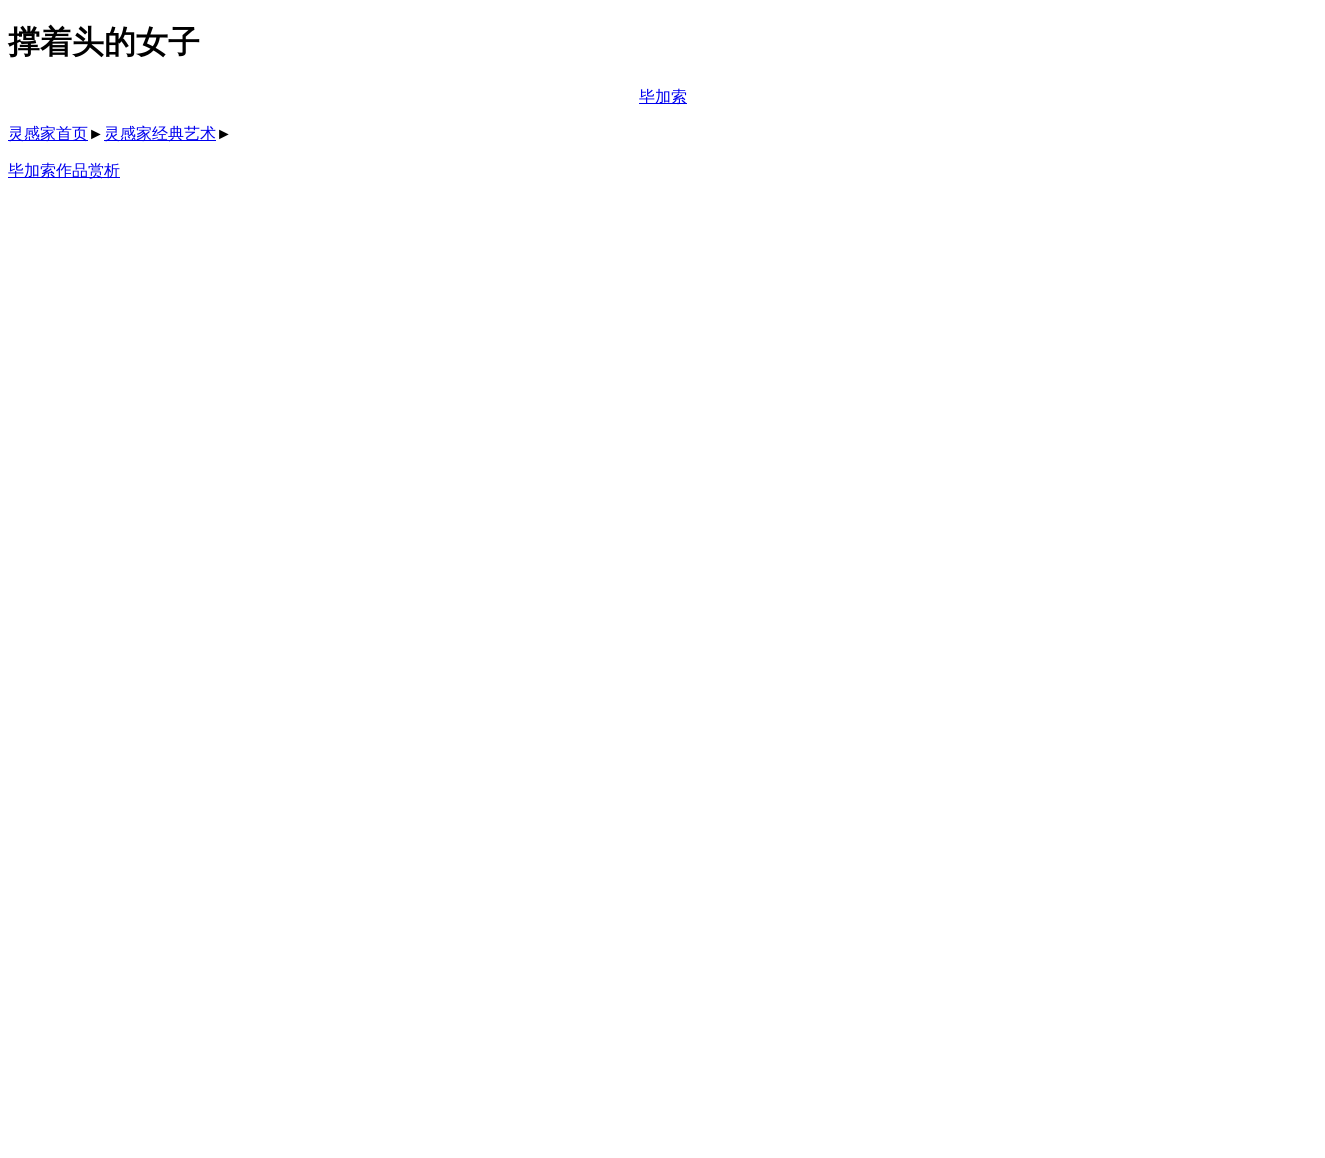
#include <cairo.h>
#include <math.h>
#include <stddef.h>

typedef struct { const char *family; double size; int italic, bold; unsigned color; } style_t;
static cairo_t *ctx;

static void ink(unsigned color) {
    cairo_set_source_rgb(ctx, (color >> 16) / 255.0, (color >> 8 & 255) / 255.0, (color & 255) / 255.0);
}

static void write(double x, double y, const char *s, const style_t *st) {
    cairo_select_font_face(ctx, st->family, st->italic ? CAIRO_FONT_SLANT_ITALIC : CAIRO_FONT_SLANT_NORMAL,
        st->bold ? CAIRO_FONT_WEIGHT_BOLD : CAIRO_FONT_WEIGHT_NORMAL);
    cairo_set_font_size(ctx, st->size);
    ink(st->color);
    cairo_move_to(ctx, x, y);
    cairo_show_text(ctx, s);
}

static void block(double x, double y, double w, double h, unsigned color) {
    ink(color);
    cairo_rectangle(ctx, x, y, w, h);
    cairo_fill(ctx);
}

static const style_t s1 = {"WenQuanYi Zen Hei", 32, 0, 1, 0x000000};
static const style_t s2 = {"WenQuanYi Zen Hei Medium", 16, 0, 0, 0x0000ee};
static const style_t s3 = {"Liberation Serif", 16, 0, 0, 0x000000};

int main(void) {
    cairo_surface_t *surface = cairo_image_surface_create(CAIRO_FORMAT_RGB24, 1325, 1158);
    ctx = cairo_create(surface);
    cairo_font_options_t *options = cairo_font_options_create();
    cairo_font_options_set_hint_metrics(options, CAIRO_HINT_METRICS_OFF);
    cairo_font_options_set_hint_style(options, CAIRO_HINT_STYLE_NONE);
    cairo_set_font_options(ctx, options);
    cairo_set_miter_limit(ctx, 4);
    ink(0xffffff);
    cairo_paint(ctx);
    write(8, 53, "撑着头的女子", &s1);
    block(639, 103, 48, 1, 0x0000ee);
    write(639, 102, "毕加索", &s2);
    block(8, 140, 80, 1, 0x0000ee);
    write(8, 139, "灵感家首页", &s2);
    write(88, 139, "►", &s3);
    block(104, 140, 112, 1, 0x0000ee);
    write(104, 139, "灵感家经典艺术", &s2);
    write(216, 139, "►", &s3);
    block(8, 177, 112, 1, 0x0000ee);
    write(8, 176, "毕加索作品赏析", &s2);
    cairo_surface_write_to_png(surface, "screenshot.png");
    cairo_font_options_destroy(options);
    cairo_destroy(ctx);
    cairo_surface_destroy(surface);
    return 0;
}
